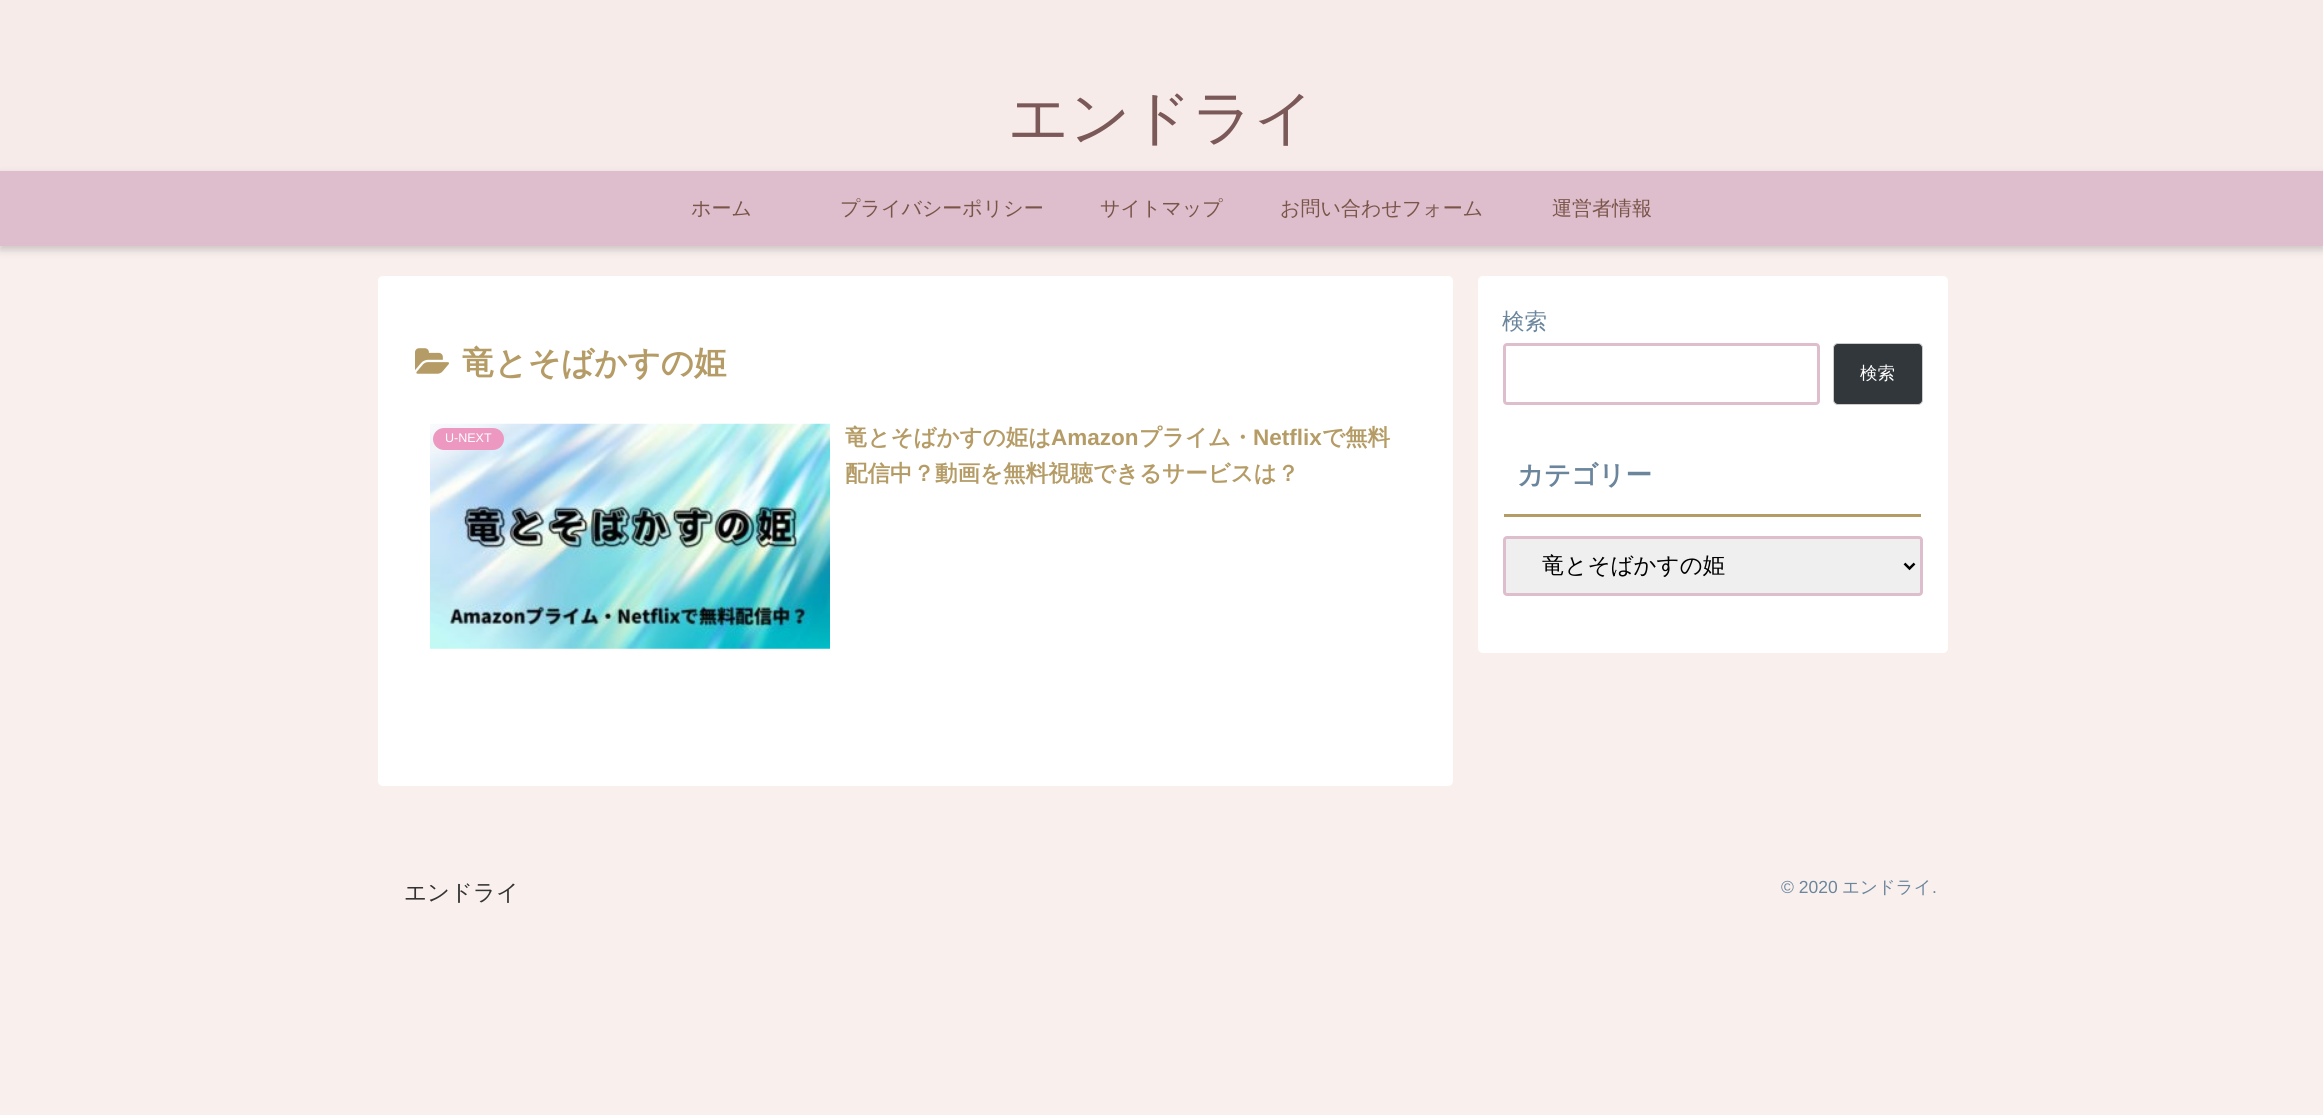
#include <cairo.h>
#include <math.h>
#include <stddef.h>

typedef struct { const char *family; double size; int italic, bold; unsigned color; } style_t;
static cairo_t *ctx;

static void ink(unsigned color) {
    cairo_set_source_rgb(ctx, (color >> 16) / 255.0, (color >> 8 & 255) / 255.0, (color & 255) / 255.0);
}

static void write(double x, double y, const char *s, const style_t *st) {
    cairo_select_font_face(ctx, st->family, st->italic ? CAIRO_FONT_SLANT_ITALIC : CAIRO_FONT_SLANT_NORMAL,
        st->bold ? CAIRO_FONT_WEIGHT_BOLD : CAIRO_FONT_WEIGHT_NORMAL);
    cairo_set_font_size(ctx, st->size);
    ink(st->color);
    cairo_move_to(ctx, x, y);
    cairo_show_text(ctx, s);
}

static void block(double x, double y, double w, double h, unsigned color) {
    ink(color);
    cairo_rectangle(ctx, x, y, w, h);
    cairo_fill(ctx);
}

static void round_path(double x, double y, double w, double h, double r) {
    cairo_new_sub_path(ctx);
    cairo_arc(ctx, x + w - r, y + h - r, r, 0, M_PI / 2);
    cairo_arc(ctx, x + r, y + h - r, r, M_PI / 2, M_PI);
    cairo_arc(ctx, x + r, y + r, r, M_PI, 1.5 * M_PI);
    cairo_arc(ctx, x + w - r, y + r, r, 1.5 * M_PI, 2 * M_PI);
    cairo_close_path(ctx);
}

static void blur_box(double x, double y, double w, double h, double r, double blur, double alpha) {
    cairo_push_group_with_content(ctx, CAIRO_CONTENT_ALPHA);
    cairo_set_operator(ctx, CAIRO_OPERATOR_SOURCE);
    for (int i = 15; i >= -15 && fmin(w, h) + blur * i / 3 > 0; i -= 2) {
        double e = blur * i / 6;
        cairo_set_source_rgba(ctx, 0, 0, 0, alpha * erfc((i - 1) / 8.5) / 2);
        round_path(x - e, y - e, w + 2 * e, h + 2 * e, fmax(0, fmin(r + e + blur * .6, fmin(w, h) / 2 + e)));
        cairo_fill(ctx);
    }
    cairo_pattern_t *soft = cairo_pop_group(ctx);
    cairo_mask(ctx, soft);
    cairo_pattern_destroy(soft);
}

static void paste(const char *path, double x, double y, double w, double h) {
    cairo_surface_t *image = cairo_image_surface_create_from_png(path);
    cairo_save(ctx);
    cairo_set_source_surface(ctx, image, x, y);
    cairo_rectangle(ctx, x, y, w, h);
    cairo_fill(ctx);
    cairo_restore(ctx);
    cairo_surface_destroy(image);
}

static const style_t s1 = {"WenQuanYi Zen Hei Medium", 60, 0, 0, 0x7b5959};
static const style_t s2 = {"WenQuanYi Zen Hei Medium", 20, 0, 0, 0x795548};
static const style_t s3 = {"WenQuanYi Zen Hei", 32.5, 0, 1, 0xb59c66};
static const style_t s4 = {"Liberation Sans", 12.5, 0, 0, 0xffffff};
static const style_t s5 = {"WenQuanYi Zen Hei", 22.5, 0, 1, 0xb59c66};
static const style_t s6 = {"Liberation Sans", 22.5, 0, 1, 0xb59c66};
static const style_t s7 = {"WenQuanYi Zen Hei Medium", 22.5, 0, 0, 0x6a859c};
static const style_t s8 = {"WenQuanYi Zen Hei Medium", 17.5, 0, 0, 0xffffff};
static const style_t s9 = {"WenQuanYi Zen Hei", 26.5, 0, 1, 0x6a859c};
static const style_t s10 = {"WenQuanYi Zen Hei Medium", 22.5, 0, 0, 0x000000};
static const style_t s11 = {"WenQuanYi Zen Hei Medium", 22.5, 0, 0, 0x333333};
static const style_t s12 = {"Liberation Sans", 17.5, 0, 0, 0x6a859c};
static const style_t s13 = {"WenQuanYi Zen Hei Medium", 17.5, 0, 0, 0x6a859c};

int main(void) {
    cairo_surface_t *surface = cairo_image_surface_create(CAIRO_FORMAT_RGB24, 2323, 1115);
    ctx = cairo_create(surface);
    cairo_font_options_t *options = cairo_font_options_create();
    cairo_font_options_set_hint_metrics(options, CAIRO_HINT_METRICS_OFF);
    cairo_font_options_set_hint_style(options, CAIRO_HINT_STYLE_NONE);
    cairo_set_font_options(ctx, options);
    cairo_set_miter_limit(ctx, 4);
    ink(0xf9f0ee);
    cairo_paint(ctx);
    block(0, 0, 2323, 171, 0xf6ebe9);
    write(1008, 138, "エンドライ", &s1);
    ink(0x000000);
    blur_box(0, 175, 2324, 75, 0, 4, 0.18);
    block(0, 171, 2323, 75, 0xdebdcd);
    write(691, 215, "ホーム", &s2);
    write(840, 215, "プライバシーポリシー", &s2);
    write(1100, 215, "サイトマップ", &s2);
    write(1280, 215, "お問い合わせフォーム", &s2);
    write(1552, 215, "運営者情報", &s2);
    ink(0xffffff);
    round_path(378, 276, 1075, 510, 5);
    cairo_fill(ctx);
    paste("pic1.png", 415, 348, 34, 26);
    write(462, 374, "竜とそばかすの姫", &s3);
    paste("pic2.png", 430, 423, 400, 226);
    ink(0xec98c1);
    round_path(433, 428, 71, 22, 11);
    cairo_fill(ctx);
    write(445, 442, "U-NEXT", &s4);
    write(845, 445, "竜とそばかすの姫は", &s5);
    write(1051, 445, "Amazon", &s6);
    write(1139, 445, "プライム・", &s5);
    write(1253, 445, "Netflix", &s6);
    write(1322, 445, "で無料", &s5);
    write(845, 481, "配信中？動画を無料視聴できるサービスは？", &s5);
    ink(0xffffff);
    round_path(1478, 276, 470, 377, 5);
    cairo_fill(ctx);
    write(1502, 329, "検索", &s7);
    round_path(1504.5, 344.5, 314, 59, 2.5);
    ink(0xdebdcd);
    cairo_set_line_width(ctx, 3);
    cairo_stroke(ctx);
    ink(0x32373c);
    round_path(1833.5, 343.5, 89, 61, 4.5);
    cairo_fill_preserve(ctx);
    ink(0xcccccc);
    cairo_set_line_width(ctx, 1);
    cairo_stroke(ctx);
    write(1860, 379, "検索", &s8);
    block(1504, 514, 417, 3, 0xb59c66);
    write(1517, 484, "カテゴリー", &s9);
    ink(0xefefef);
    round_path(1504.5, 537.5, 417, 57, 2.5);
    cairo_fill_preserve(ctx);
    ink(0xdebdcd);
    cairo_set_line_width(ctx, 3);
    cairo_stroke(ctx);
    cairo_new_path(ctx);
    cairo_move_to(ctx, 1904.5, 563.5);
    cairo_line_to(ctx, 1909.5, 568.5);
    cairo_line_to(ctx, 1914.5, 563.5);
    ink(0x000000);
    cairo_set_line_width(ctx, 2.5);
    cairo_stroke(ctx);
    write(1542, 573, "竜とそばかすの姫", &s10);
    write(404, 900, "エンドライ", &s11);
    write(1781, 893, "© 2020", &s12);
    write(1842, 893, "エンドライ", &s13);
    write(1932, 893, ".", &s12);
    cairo_surface_write_to_png(surface, "screenshot.png");
    cairo_font_options_destroy(options);
    cairo_destroy(ctx);
    cairo_surface_destroy(surface);
    return 0;
}
